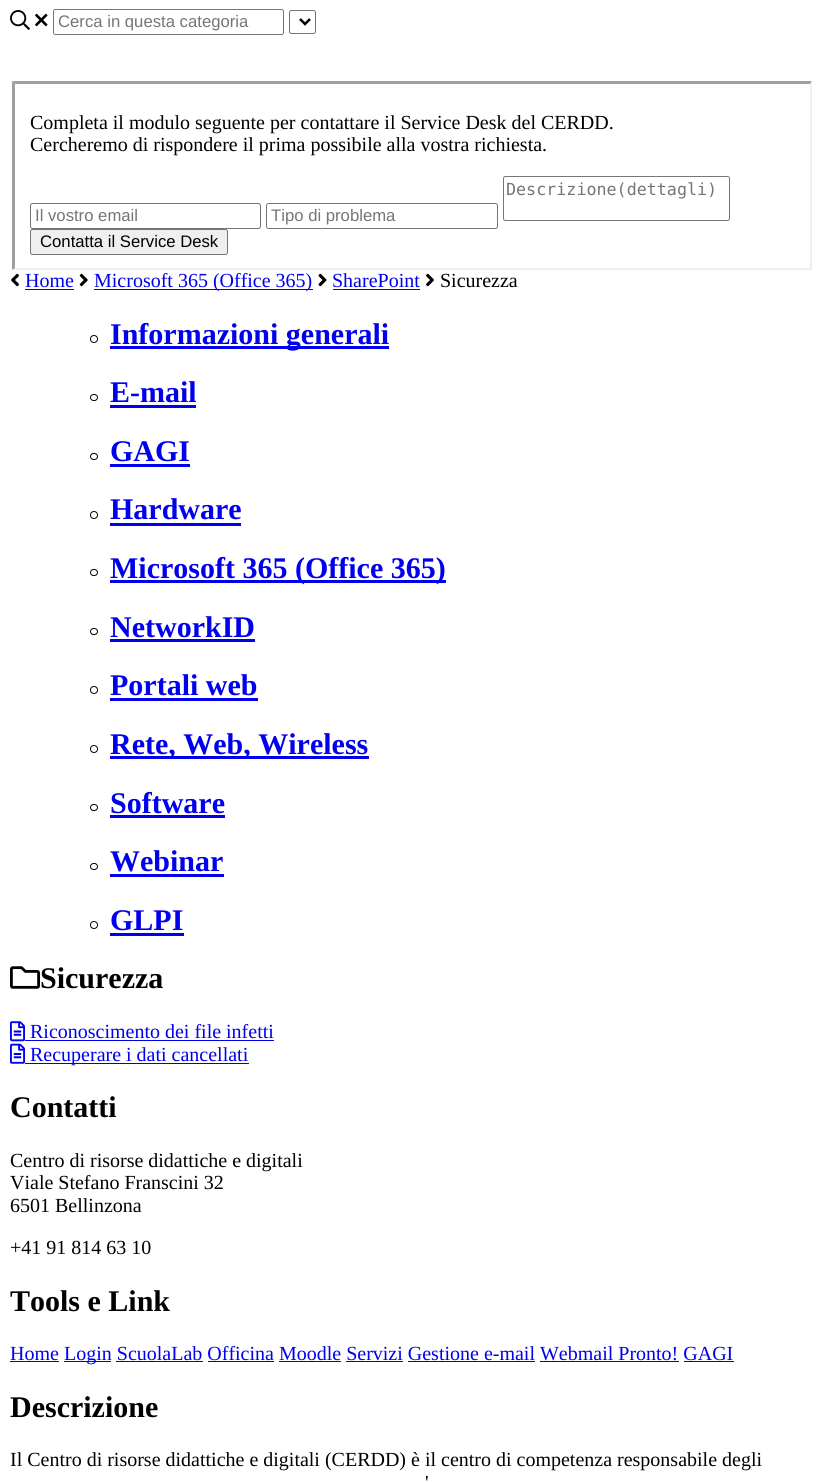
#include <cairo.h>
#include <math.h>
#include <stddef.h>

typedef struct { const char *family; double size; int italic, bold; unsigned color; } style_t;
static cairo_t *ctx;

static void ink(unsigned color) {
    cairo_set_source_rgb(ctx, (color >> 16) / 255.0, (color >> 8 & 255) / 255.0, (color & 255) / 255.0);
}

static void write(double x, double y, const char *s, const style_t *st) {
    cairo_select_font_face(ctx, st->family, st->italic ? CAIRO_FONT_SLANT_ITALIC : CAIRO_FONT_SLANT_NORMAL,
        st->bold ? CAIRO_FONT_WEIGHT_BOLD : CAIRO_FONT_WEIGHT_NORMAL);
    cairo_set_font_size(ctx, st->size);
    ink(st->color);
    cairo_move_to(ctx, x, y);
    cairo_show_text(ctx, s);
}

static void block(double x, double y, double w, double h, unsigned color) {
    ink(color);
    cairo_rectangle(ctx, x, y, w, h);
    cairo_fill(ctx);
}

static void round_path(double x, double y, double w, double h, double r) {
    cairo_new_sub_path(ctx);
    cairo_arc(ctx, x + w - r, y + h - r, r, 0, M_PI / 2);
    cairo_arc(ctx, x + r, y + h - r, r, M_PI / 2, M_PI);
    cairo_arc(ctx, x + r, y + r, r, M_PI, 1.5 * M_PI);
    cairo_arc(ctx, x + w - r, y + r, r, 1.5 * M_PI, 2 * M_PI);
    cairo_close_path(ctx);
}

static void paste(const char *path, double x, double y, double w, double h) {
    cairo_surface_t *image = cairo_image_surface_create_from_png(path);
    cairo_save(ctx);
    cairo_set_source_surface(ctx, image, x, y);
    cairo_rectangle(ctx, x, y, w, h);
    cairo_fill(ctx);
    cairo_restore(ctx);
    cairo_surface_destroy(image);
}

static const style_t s1 = {"Liberation Sans", 16.7, 0, 0, 0x757575};
static const style_t s2 = {"Liberation Serif", 20, 0, 0, 0x000000};
static const style_t s3 = {"DejaVu Sans Mono", 16.7, 0, 0, 0x757575};
static const style_t s4 = {"Liberation Sans", 16.7, 0, 0, 0x000000};
static const style_t s5 = {"Liberation Serif", 20, 0, 0, 0x0000ee};
static const style_t s6 = {"Liberation Serif", 30, 0, 1, 0x0000ee};
static const style_t s7 = {"Liberation Serif", 30, 0, 1, 0x000000};

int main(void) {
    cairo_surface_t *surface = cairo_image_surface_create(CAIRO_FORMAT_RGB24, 825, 1482);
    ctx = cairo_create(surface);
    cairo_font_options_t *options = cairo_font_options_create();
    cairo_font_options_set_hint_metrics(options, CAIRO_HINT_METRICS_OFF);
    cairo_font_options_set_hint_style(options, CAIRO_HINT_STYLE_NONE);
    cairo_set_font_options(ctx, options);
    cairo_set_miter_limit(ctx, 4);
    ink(0xffffff);
    cairo_paint(ctx);
    paste("pic1.png", 10, 10, 20, 20);
    paste("pic2.png", 35, 13, 13, 14);
    round_path(53.5, 9.5, 230, 25, 2);
    ink(0x767676);
    cairo_set_line_width(ctx, 1);
    cairo_stroke(ctx);
    write(58, 27, "Cerca in questa categoria", &s1);
    round_path(289.5, 10.5, 26, 23, 2);
    ink(0x767676);
    cairo_stroke(ctx);
    cairo_new_path(ctx);
    cairo_move_to(ctx, 300, 19);
    cairo_line_to(ctx, 305, 24);
    cairo_line_to(ctx, 310, 19);
    ink(0x000000);
    cairo_set_line_width(ctx, 2.5);
    cairo_stroke(ctx);
    ink(0x9f9f9f);
    cairo_new_path(ctx);
    cairo_move_to(ctx, 12, 81);
    cairo_line_to(ctx, 812, 81);
    cairo_line_to(ctx, 810, 84);
    cairo_line_to(ctx, 15, 84);
    cairo_close_path(ctx);
    cairo_fill(ctx);
    ink(0xefefef);
    cairo_new_path(ctx);
    cairo_move_to(ctx, 812, 81);
    cairo_line_to(ctx, 812, 270);
    cairo_line_to(ctx, 810, 268);
    cairo_line_to(ctx, 810, 84);
    cairo_close_path(ctx);
    cairo_fill(ctx);
    cairo_new_path(ctx);
    cairo_move_to(ctx, 812, 270);
    cairo_line_to(ctx, 12, 270);
    cairo_line_to(ctx, 15, 268);
    cairo_line_to(ctx, 810, 268);
    cairo_close_path(ctx);
    cairo_fill(ctx);
    ink(0x9f9f9f);
    cairo_new_path(ctx);
    cairo_move_to(ctx, 12, 270);
    cairo_line_to(ctx, 12, 81);
    cairo_line_to(ctx, 15, 84);
    cairo_line_to(ctx, 15, 268);
    cairo_close_path(ctx);
    cairo_fill(ctx);
    write(30, 129, "Completa il modulo seguente per contattare il Service Desk del CERDD.", &s2);
    write(30, 151, "Cercheremo di rispondere il prima possibile alla vostra richiesta.", &s2);
    round_path(503.5, 176.5, 226, 44, 2);
    ink(0x767676);
    cairo_set_line_width(ctx, 1);
    cairo_stroke(ctx);
    write(506, 195, "Descrizione(dettagli)", &s3);
    round_path(30.5, 203.5, 230, 25, 2);
    ink(0x767676);
    cairo_stroke(ctx);
    write(35, 221, "Il vostro email", &s1);
    round_path(266.5, 203.5, 231, 25, 2);
    ink(0x767676);
    cairo_stroke(ctx);
    write(271, 221, "Tipo di problema", &s1);
    ink(0xefefef);
    round_path(30.5, 229.5, 197, 25, 2);
    cairo_fill_preserve(ctx);
    ink(0x767676);
    cairo_stroke(ctx);
    write(40, 247, "Contatta il Service Desk", &s4);
    paste("pic3.png", 11, 273, 8, 14);
    write(25, 287, "Home", &s5);
    block(25, 289, 49, 1, 0x0000ee);
    paste("pic4.png", 79, 273, 9, 14);
    block(94, 289, 219, 1, 0x0000ee);
    write(94, 287, "Microsoft 365 (Office 365)", &s5);
    paste("pic5.png", 318, 273, 9, 14);
    write(332, 287, "SharePoint", &s5);
    block(333, 289, 87, 1, 0x0000ee);
    paste("pic6.png", 426, 273, 8, 14);
    write(440, 287, "Sicurezza", &s2);
    cairo_new_path(ctx);
    cairo_arc(ctx, 94, 339, 3.5, 0, 2 * M_PI);
    cairo_stroke(ctx);
    block(110, 346, 279, 3, 0x0000ee);
    write(110, 344, "Informazioni generali", &s6);
    round_path(90.5, 394.5, 7, 6, 3);
    ink(0x000000);
    cairo_stroke(ctx);
    write(110, 402, "E-mail", &s6);
    block(110, 405, 86, 3, 0x0000ee);
    round_path(90.5, 453.5, 7, 6, 3);
    ink(0x000000);
    cairo_stroke(ctx);
    write(110, 461, "GAGI", &s6);
    block(110, 464, 80, 3, 0x0000ee);
    cairo_new_path(ctx);
    cairo_arc(ctx, 94, 515, 3.5, 0, 2 * M_PI);
    ink(0x000000);
    cairo_stroke(ctx);
    write(110, 519, "Hardware", &s6);
    block(110, 523, 131, 3, 0x0000ee);
    round_path(90.5, 569.5, 7, 6, 3);
    ink(0x000000);
    cairo_stroke(ctx);
    block(110, 580, 336, 3, 0x0000ee);
    write(110, 578, "Microsoft 365 (Office 365)", &s6);
    round_path(90.5, 628.5, 7, 6, 3);
    ink(0x000000);
    cairo_stroke(ctx);
    write(110, 637, "NetworkID", &s6);
    block(110, 639, 145, 3, 0x0000ee);
    cairo_new_path(ctx);
    cairo_arc(ctx, 94, 690, 3.5, 0, 2 * M_PI);
    ink(0x000000);
    cairo_stroke(ctx);
    write(110, 695, "Portali web", &s6);
    block(110, 698, 148, 3, 0x0000ee);
    cairo_new_path(ctx);
    cairo_arc(ctx, 94, 749, 3.5, 0, 2 * M_PI);
    ink(0x000000);
    cairo_stroke(ctx);
    block(110, 756, 259, 3, 0x0000ee);
    write(110, 754, "Rete, Web, Wireless", &s6);
    round_path(90.5, 804.5, 7, 6, 3);
    ink(0x000000);
    cairo_stroke(ctx);
    write(110, 813, "Software", &s6);
    block(110, 815, 115, 3, 0x0000ee);
    round_path(90.5, 863.5, 7, 6, 3);
    ink(0x000000);
    cairo_stroke(ctx);
    write(110, 871, "Webinar", &s6);
    block(110, 874, 114, 3, 0x0000ee);
    cairo_new_path(ctx);
    cairo_arc(ctx, 94, 925, 3.5, 0, 2 * M_PI);
    ink(0x000000);
    cairo_stroke(ctx);
    write(110, 930, "GLPI", &s6);
    block(110, 933, 74, 3, 0x0000ee);
    paste("pic7.png", 10, 966, 30, 23);
    write(40, 988, "Sicurezza", &s7);
    paste("pic8.png", 10, 1021, 15, 21);
    write(30, 1038, "Riconoscimento dei file infetti", &s5);
    block(25, 1040, 249, 1, 0x0000ee);
    paste("pic9.png", 10, 1043, 15, 21);
    block(25, 1063, 224, 1, 0x0000ee);
    write(30, 1061, "Recuperare i dati cancellati", &s5);
    write(10, 1117, "Contatti", &s7);
    write(10, 1167, "Centro di risorse didattiche e digitali", &s2);
    write(10, 1189, "Viale Stefano Franscini 32", &s2);
    write(10, 1212, "6501 Bellinzona", &s2);
    write(10, 1254, "+41 91 814 63 10", &s2);
    write(10, 1311, "Tools e Link", &s7);
    write(10, 1360, "Home", &s5);
    block(10, 1361, 49, 1, 0x0000ee);
    block(64, 1361, 47, 1, 0x0000ee);
    write(64, 1360, "Login ScuolaLab Officina Moodle Servizi Gestione e-mail Webmail Pronto! GAGI", &s5);
    block(116, 1361, 87, 1, 0x0000ee);
    block(208, 1361, 66, 1, 0x0000ee);
    block(279, 1361, 62, 1, 0x0000ee);
    block(346, 1361, 57, 1, 0x0000ee);
    block(408, 1361, 127, 1, 0x0000ee);
    block(540, 1361, 139, 1, 0x0000ee);
    block(684, 1361, 50, 1, 0x0000ee);
    write(10, 1417, "Descrizione", &s7);
    write(10, 1466, "Il Centro di risorse didattiche e digitali (CERDD) è il centro di competenza responsabile degli", &s2);
    write(425, 1489, "'", &s2);
    cairo_surface_write_to_png(surface, "screenshot.png");
    cairo_font_options_destroy(options);
    cairo_destroy(ctx);
    cairo_surface_destroy(surface);
    return 0;
}
